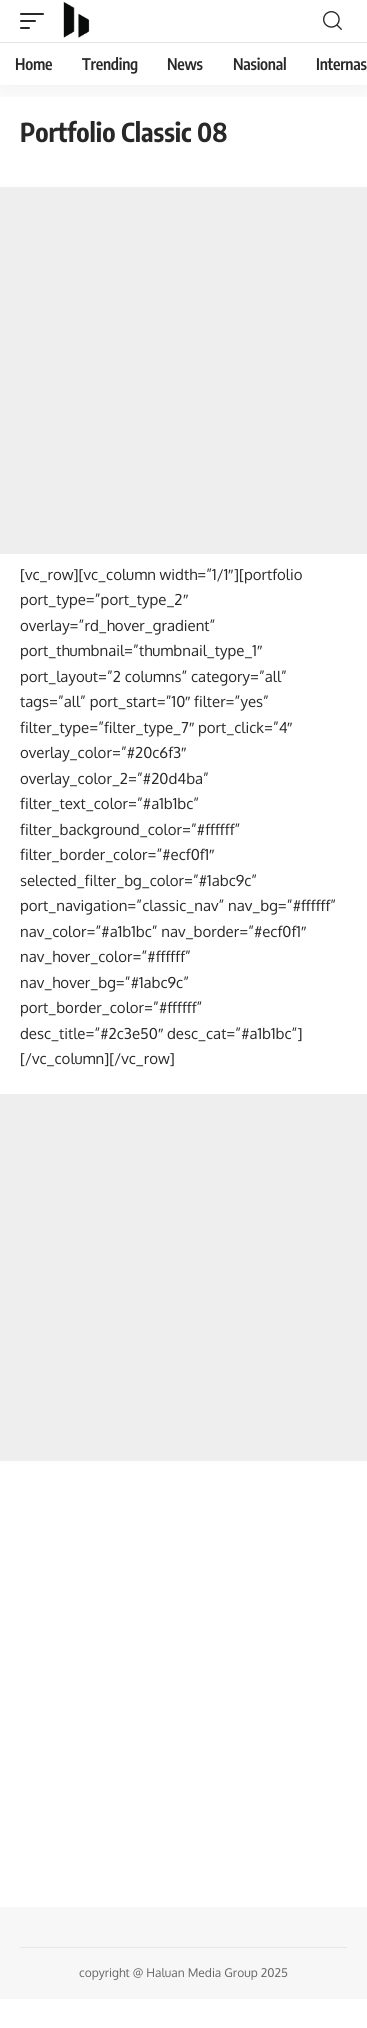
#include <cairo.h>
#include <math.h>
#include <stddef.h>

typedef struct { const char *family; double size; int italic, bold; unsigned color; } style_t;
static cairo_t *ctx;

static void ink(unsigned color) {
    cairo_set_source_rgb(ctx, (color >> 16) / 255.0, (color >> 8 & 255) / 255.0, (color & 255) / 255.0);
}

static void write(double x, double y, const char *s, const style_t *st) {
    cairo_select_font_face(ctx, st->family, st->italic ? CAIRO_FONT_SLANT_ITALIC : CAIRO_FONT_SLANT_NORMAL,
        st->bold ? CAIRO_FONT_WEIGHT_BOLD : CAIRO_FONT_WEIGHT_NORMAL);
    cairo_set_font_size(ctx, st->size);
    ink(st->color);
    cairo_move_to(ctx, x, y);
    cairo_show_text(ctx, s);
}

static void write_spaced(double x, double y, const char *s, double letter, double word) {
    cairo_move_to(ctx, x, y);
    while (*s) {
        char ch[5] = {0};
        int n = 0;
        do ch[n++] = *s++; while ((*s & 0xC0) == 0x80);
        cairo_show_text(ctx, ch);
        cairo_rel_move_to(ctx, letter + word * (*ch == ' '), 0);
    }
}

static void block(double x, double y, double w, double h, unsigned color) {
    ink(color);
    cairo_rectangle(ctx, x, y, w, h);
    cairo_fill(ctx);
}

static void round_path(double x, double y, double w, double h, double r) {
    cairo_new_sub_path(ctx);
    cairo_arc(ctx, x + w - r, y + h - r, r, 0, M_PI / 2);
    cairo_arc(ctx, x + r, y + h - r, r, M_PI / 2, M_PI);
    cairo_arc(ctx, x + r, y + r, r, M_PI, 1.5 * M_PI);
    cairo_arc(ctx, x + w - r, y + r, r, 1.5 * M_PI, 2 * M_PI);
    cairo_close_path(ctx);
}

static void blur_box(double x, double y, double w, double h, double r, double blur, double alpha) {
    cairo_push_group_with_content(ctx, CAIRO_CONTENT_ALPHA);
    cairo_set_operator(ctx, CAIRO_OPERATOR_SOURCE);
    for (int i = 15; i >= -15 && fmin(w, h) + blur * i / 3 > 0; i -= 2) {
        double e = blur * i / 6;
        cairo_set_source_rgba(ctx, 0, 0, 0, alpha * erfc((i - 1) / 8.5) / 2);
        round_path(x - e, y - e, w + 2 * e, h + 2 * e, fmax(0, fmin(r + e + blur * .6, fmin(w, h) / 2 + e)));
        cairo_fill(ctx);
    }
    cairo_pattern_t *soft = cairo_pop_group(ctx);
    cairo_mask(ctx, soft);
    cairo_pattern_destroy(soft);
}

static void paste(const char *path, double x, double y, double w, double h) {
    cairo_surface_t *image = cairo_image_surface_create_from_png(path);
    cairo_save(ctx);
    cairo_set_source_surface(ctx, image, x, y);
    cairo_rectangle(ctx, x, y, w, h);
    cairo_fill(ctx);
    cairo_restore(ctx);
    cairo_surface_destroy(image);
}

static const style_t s1 = {"Encode Sans Condensed", 26, 0, 1, 0x282828};
static const style_t s2 = {"Oxygen", 15, 0, 0, 0x282828};
static const style_t s3 = {"Liberation Sans", 15, 0, 0, 0x282828};
static const style_t s4 = {"Oxygen", 12, 0, 0, 0x666666};

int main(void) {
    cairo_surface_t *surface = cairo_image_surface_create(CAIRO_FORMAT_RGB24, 367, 2028);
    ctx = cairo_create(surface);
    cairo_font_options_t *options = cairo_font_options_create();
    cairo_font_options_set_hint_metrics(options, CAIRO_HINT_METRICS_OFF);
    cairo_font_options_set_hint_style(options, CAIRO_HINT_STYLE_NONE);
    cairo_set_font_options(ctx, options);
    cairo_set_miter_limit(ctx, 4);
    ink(0xffffff);
    cairo_paint(ctx);
    cairo_save(ctx);
    cairo_rectangle(ctx, 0, 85, 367, 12);
    cairo_clip(ctx);
    ink(0x000000);
    blur_box(0, 4, 367, 85, 0, 15, 0.07);
    cairo_restore(ctx);
    ink(0x282828);
    round_path(20, 13, 24, 2, 1);
    cairo_fill(ctx);
    round_path(20, 20, 16, 2, 1);
    cairo_fill(ctx);
    round_path(20, 27, 10, 2, 1);
    cairo_fill(ctx);
    paste("pic1.png", 63, 1, 27, 37);
    paste("pic2.png", 323, 11, 19, 19);
    block(0, 42, 367, 1, 0xe4e4e4);
    cairo_select_font_face(ctx, "Encode Sans Condensed SemiBold", CAIRO_FONT_SLANT_NORMAL, CAIRO_FONT_WEIGHT_NORMAL);
    cairo_set_font_size(ctx, 16);
    ink(0x282828);
    write_spaced(15, 70, "Home", -0.25, 0);
    write_spaced(82, 70, "Trending", -0.25, 0);
    write_spaced(167, 70, "News", -0.25, 0);
    write_spaced(233, 70, "Nasional", -0.25, 0);
    write_spaced(316, 70, "Internas", -0.25, 0);
    write(20, 142, "Portfolio Classic 08", &s1);
    block(0, 187, 367, 367, 0xeeeeee);
    write(20, 580, "[vc_row][vc_column width=”1/1", &s2);
    write(228, 580, "″", &s3);
    write(234, 580, "][portfolio", &s2);
    write(20, 605, "port_type=”port_type_2", &s2);
    write(183, 605, "″", &s3);
    write(20, 631, "overlay=”rd_hover_gradient”", &s2);
    write(20, 656, "port_thumbnail=”thumbnail_type_1", &s2);
    write(257, 656, "″", &s3);
    write(20, 682, "port_layout=”2 columns” category=”all”", &s2);
    write(20, 707, "tags=”all” port_start=”10", &s2);
    write(185, 707, "″", &s3);
    write(194, 707, "filter=”yes”", &s2);
    write(20, 733, "filter_type=”filter_type_7", &s2);
    write(189, 733, "″", &s3);
    write(198, 733, "port_click=”4", &s2);
    write(287, 733, "″", &s3);
    write(20, 758, "overlay_color=”#20c6f3", &s2);
    write(181, 758, "″", &s3);
    write(20, 784, "overlay_color_2=”#20d4ba”", &s2);
    write(20, 809, "filter_text_color=”#a1b1bc”", &s2);
    write(20, 835, "filter_background_color=”#ffffff”", &s2);
    write(20, 860, "filter_border_color=”#ecf0f1", &s2);
    write(209, 860, "″", &s3);
    write(20, 886, "selected_filter_bg_color=”#1abc9c”", &s2);
    write(20, 911, "port_navigation=”classic_nav” nav_bg=”#ffffff”", &s2);
    write(20, 937, "nav_color=”#a1b1bc” nav_border=”#ecf0f1", &s2);
    write(301, 937, "″", &s3);
    write(20, 962, "nav_hover_color=”#ffffff”", &s2);
    write(20, 988, "nav_hover_bg=”#1abc9c”", &s2);
    write(20, 1013, "port_border_color=”#ffffff”", &s2);
    write(20, 1039, "desc_title=”#2c3e50", &s2);
    write(158, 1039, "″", &s3);
    write(167, 1039, "desc_cat=”#a1b1bc”]", &s2);
    write(20, 1064, "[/vc_column][/vc_row]", &s2);
    block(0, 1094, 367, 367, 0xeeeeee);
    block(0, 1907, 367, 92, 0xf7f7f7);
    block(20, 1947, 327, 1, 0xe6e6e6);
    write(79, 1977, "copyright @ Haluan Media Group 2025", &s4);
    cairo_surface_write_to_png(surface, "screenshot.png");
    cairo_font_options_destroy(options);
    cairo_destroy(ctx);
    cairo_surface_destroy(surface);
    return 0;
}
